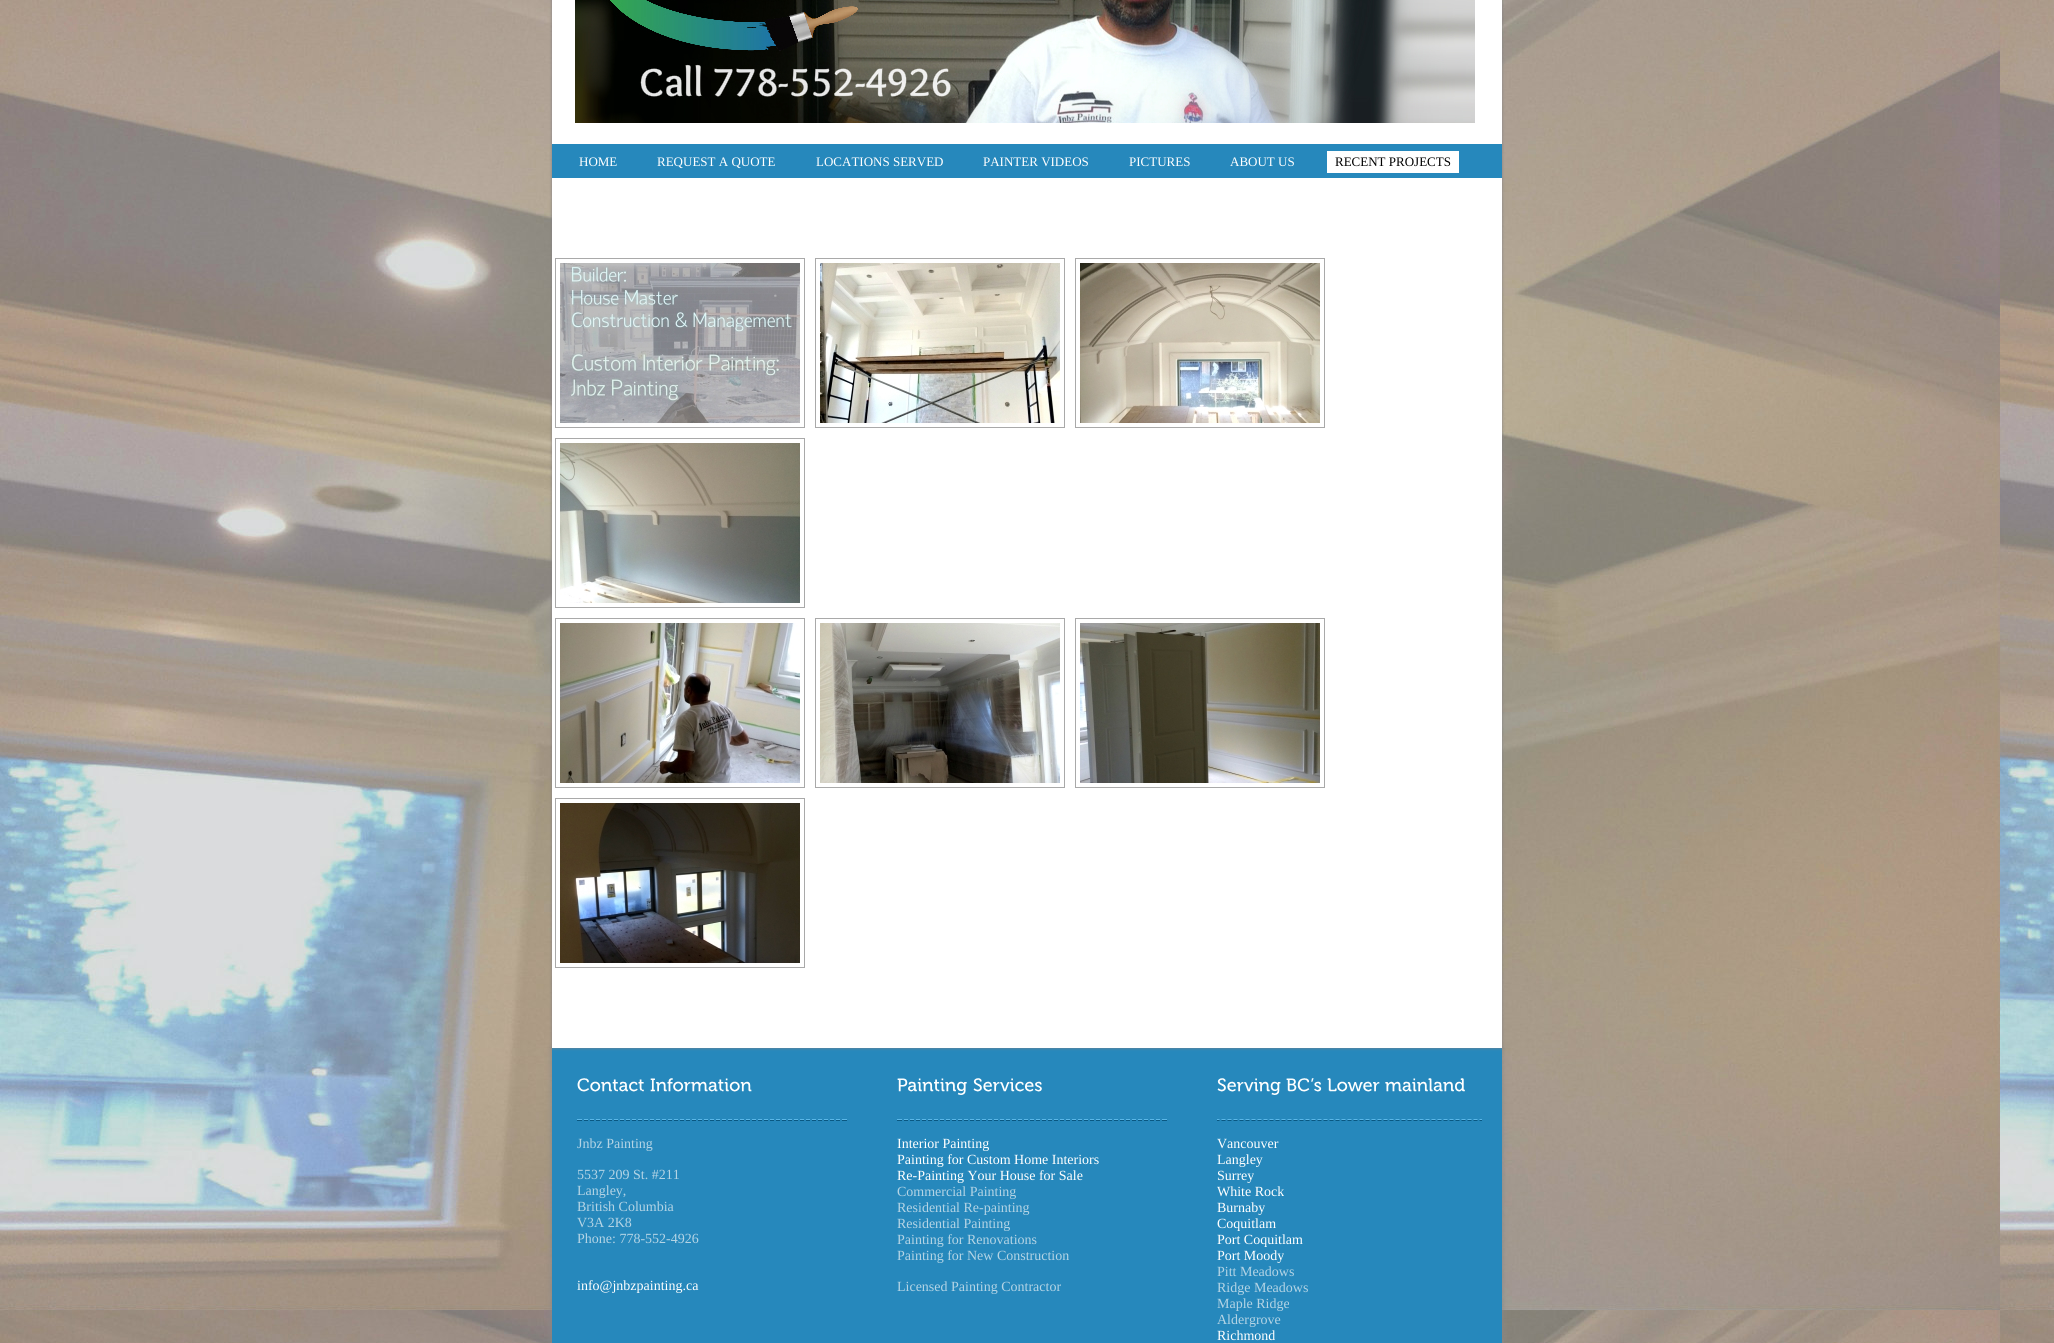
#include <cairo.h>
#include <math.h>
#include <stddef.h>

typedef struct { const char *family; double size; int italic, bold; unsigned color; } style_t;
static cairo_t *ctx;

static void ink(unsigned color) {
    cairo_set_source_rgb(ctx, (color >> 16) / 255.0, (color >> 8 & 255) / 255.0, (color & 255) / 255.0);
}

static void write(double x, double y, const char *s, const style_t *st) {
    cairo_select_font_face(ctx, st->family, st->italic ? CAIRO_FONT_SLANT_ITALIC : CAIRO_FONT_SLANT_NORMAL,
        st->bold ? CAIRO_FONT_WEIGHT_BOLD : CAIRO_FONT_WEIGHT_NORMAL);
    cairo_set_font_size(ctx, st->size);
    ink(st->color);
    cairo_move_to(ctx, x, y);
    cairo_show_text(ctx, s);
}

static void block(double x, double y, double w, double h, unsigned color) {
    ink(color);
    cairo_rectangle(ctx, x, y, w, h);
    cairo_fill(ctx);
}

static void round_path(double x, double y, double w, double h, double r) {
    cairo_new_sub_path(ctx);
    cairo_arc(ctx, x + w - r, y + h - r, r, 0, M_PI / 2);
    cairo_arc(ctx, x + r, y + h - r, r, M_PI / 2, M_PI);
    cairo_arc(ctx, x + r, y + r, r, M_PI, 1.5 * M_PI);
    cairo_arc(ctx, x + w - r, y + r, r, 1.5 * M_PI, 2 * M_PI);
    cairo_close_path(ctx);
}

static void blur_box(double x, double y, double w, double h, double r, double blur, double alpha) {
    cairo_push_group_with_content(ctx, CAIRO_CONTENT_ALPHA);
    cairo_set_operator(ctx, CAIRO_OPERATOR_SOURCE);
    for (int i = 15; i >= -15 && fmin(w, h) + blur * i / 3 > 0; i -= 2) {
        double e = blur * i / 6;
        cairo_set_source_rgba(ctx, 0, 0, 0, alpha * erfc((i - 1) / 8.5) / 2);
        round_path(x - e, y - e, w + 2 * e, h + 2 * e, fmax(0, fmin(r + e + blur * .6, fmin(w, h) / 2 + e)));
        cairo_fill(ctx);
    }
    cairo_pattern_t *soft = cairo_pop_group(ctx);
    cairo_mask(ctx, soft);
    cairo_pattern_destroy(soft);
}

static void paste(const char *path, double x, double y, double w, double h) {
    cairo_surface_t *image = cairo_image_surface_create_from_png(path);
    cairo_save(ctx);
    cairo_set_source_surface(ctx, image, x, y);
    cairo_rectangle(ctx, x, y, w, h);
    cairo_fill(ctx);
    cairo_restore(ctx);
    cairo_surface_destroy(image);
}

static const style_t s1 = {"Liberation Serif", 13, 0, 0, 0xffffff};
static const style_t s2 = {"Liberation Serif", 13, 0, 0, 0x000000};
static const style_t s3 = {"Liberation Serif", 14, 0, 0, 0xb4d4e5};
static const style_t s4 = {"Liberation Serif", 14, 0, 0, 0xffffff};

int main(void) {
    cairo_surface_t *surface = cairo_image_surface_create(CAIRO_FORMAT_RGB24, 2054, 1343);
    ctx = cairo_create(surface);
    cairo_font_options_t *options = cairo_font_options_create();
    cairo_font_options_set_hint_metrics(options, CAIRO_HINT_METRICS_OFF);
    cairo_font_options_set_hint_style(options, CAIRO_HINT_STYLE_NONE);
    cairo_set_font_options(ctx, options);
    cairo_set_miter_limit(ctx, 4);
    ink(0xffffff);
    cairo_paint(ctx);
    paste("pic1.png", 0, 0, 2054, 1343);
    ink(0x888888);
    blur_box(552, 1049, 950, 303, 0, 3, 1);
    block(552, 1048, 950, 295, 0x2688bc);
    ink(0x818085);
    blur_box(552, -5, 950, 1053, 0, 1.5, 1);
    block(552, 0, 950, 1048, 0xffffff);
    paste("pic2.png", 575, 0, 900, 123);
    block(552, 144, 950, 34, 0x2688bc);
    write(579, 166, "HOME", &s1);
    write(657, 166, "REQUEST A QUOTE", &s1);
    write(816, 166, "LOCATIONS SERVED", &s1);
    write(983, 166, "PAINTER VIDEOS", &s1);
    write(1129, 166, "PICTURES", &s1);
    write(1230, 166, "ABOUT US", &s1);
    block(1327, 151, 132, 22, 0xffffff);
    write(1335, 166, "RECENT PROJECTS", &s2);
    cairo_rectangle(ctx, 555.5, 258.5, 249, 169);
    ink(0xa9a9a9);
    cairo_set_line_width(ctx, 1);
    cairo_stroke(ctx);
    paste("pic3.png", 560, 263, 240, 160);
    cairo_rectangle(ctx, 815.5, 258.5, 249, 169);
    cairo_stroke(ctx);
    paste("pic4.png", 820, 263, 240, 160);
    cairo_rectangle(ctx, 1075.5, 258.5, 249, 169);
    cairo_stroke(ctx);
    paste("pic5.png", 1080, 263, 240, 160);
    cairo_rectangle(ctx, 555.5, 438.5, 249, 169);
    cairo_stroke(ctx);
    paste("pic6.png", 560, 443, 240, 160);
    cairo_rectangle(ctx, 555.5, 618.5, 249, 169);
    cairo_stroke(ctx);
    paste("pic7.png", 560, 623, 240, 160);
    cairo_rectangle(ctx, 815.5, 618.5, 249, 169);
    cairo_stroke(ctx);
    paste("pic8.png", 820, 623, 240, 160);
    cairo_rectangle(ctx, 1075.5, 618.5, 249, 169);
    cairo_stroke(ctx);
    paste("pic9.png", 1080, 623, 240, 160);
    cairo_rectangle(ctx, 555.5, 798.5, 249, 169);
    cairo_stroke(ctx);
    paste("pic10.png", 560, 803, 240, 160);
    paste("pic11.png", 577, 1119, 270, 2);
    paste("pic12.png", 577, 1078, 67, 14);
    paste("pic13.png", 650, 1078, 102, 14);
    write(577, 1148, "Jnbz Painting", &s3);
    write(577, 1179, "5537 209 St. #211", &s3);
    write(577, 1195, "Langley,", &s3);
    write(577, 1211, "British Columbia", &s3);
    write(577, 1227, "V3A 2K8", &s3);
    write(577, 1243, "Phone: 778-552-4926", &s3);
    write(577, 1290, "info@jnbzpainting.ca", &s4);
    paste("pic11.png", 897, 1119, 270, 2);
    paste("pic14.png", 897, 1078, 70, 17);
    paste("pic15.png", 973, 1078, 69, 14);
    write(897, 1148, "Interior Painting", &s4);
    write(897, 1164, "Painting for Custom Home Interiors", &s4);
    write(897, 1180, "Re-Painting Your House for Sale", &s4);
    write(897, 1196, "Commercial Painting", &s3);
    write(897, 1212, "Residential Re-painting", &s3);
    write(897, 1228, "Residential Painting", &s3);
    write(897, 1244, "Painting for Renovations", &s3);
    write(897, 1260, "Painting for New Construction", &s3);
    write(897, 1291, "Licensed Painting Contractor", &s3);
    paste("pic16.png", 1217, 1119, 265, 2);
    paste("pic17.png", 1217, 1078, 64, 17);
    paste("pic18.png", 1286, 1078, 36, 14);
    paste("pic19.png", 1327, 1078, 53, 14);
    paste("pic20.png", 1385, 1078, 80, 14);
    write(1217, 1148, "Vancouver", &s4);
    write(1217, 1164, "Langley", &s4);
    write(1217, 1180, "Surrey", &s4);
    write(1217, 1196, "White Rock", &s4);
    write(1217, 1212, "Burnaby", &s4);
    write(1217, 1228, "Coquitlam", &s4);
    write(1217, 1244, "Port Coquitlam", &s4);
    write(1217, 1260, "Port Moody", &s4);
    write(1217, 1276, "Pitt Meadows", &s3);
    write(1217, 1292, "Ridge Meadows", &s3);
    write(1217, 1308, "Maple Ridge", &s3);
    write(1217, 1324, "Aldergrove", &s3);
    write(1217, 1340, "Richmond", &s4);
    cairo_surface_write_to_png(surface, "screenshot.png");
    cairo_font_options_destroy(options);
    cairo_destroy(ctx);
    cairo_surface_destroy(surface);
    return 0;
}
